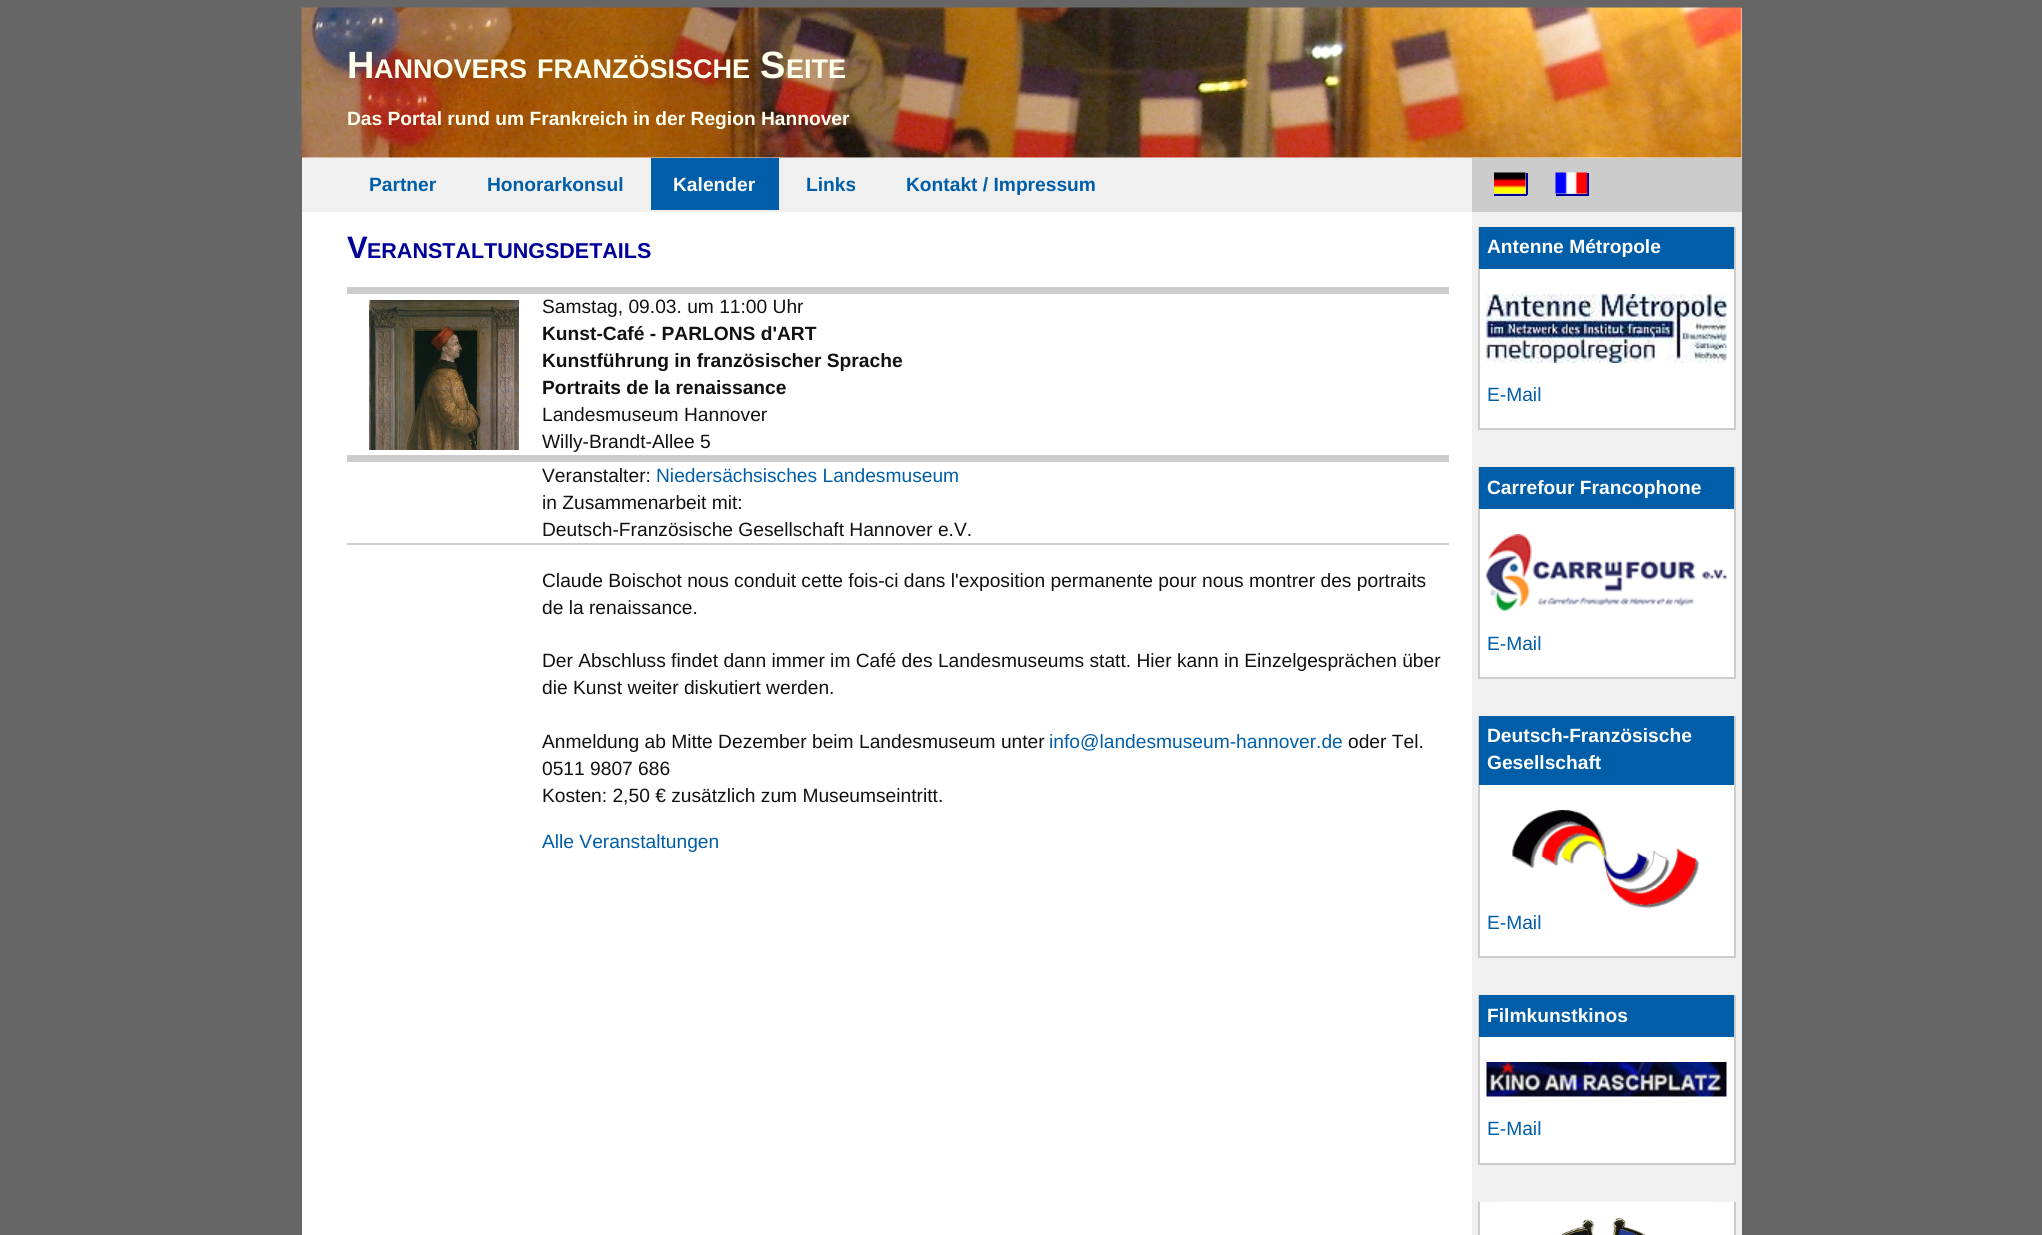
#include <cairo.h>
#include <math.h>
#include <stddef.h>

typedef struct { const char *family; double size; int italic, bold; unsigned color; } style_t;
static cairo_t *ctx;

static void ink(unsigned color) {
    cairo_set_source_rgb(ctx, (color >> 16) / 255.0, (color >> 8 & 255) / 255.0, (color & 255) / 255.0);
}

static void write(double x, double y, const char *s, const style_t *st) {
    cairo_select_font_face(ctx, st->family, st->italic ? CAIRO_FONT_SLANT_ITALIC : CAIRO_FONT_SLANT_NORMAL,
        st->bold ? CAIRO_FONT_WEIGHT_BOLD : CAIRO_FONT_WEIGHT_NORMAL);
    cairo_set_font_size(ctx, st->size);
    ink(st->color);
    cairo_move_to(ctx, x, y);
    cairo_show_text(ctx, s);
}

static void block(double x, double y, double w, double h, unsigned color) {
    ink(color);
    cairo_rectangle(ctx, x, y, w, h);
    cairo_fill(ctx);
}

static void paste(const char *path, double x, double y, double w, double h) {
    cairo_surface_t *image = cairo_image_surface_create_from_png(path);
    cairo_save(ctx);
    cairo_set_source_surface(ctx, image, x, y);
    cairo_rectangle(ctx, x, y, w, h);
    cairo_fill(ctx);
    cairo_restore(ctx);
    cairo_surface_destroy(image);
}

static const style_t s1 = {"Liberation Sans", 38, 0, 1, 0xffffee};
static const style_t s2 = {"Liberation Sans", 27, 0, 1, 0xffffee};
static const style_t s3 = {"Liberation Sans", 19.2, 0, 1, 0xffffee};
static const style_t s4 = {"Liberation Sans", 19.2, 0, 1, 0x005da8};
static const style_t s5 = {"Liberation Sans", 19.2, 0, 1, 0xffffff};
static const style_t s6 = {"Liberation Sans", 31, 0, 1, 0x000099};
static const style_t s7 = {"Liberation Sans", 21.5, 0, 1, 0x000099};
static const style_t s8 = {"Liberation Sans", 19.2, 0, 0, 0x111111};
static const style_t s9 = {"Liberation Sans", 19.2, 0, 1, 0x111111};
static const style_t s10 = {"Liberation Sans", 19.2, 0, 0, 0x005da8};

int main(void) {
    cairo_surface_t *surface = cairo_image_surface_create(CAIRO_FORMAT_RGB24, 2042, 1235);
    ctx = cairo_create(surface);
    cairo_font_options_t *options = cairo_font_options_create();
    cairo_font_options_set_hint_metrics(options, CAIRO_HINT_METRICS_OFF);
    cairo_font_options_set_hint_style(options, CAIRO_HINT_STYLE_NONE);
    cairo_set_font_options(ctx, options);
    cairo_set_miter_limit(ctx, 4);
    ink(0x666666);
    cairo_paint(ctx);
    block(302, 158, 1440, 1077, 0xf0f0f0);
    block(302, 8, 1440, 150, 0xfcfcfc);
    paste("pic1.png", 301, 7, 1441, 151);
    write(347, 78, "H", &s1);
    write(374, 78, "ANNOVERS", &s2);
    write(537, 78, "FRANZÖSISCHE", &s2);
    write(760, 78, "S", &s1);
    write(786, 78, "EITE", &s2);
    write(347, 125, "Das Portal rund um Frankreich in der Region Hannover", &s3);
    write(369, 191, "Partner", &s4);
    write(487, 191, "Honorarkonsul", &s4);
    block(651, 158, 128, 52, 0x005da8);
    write(673, 191, "Kalender", &s5);
    write(806, 191, "Links", &s4);
    write(906, 191, "Kontakt / Impressum", &s4);
    block(1472, 158, 270, 54, 0xcccccc);
    paste("pic2.png", 1494, 172, 32, 22);
    block(1526, 173, 2, 22, 0x000099);
    paste("pic3.png", 1555, 172, 32, 22);
    block(1587, 173, 2, 22, 0x000099);
    block(1494, 194, 33, 2, 0x000099);
    block(1556, 194, 33, 2, 0x000099);
    block(302, 212, 1170, 1023, 0xffffff);
    write(347, 258, "V", &s6);
    write(367, 258, "ERANSTALTUNGSDETAILS", &s7);
    block(347, 287, 1102, 7, 0xcccccc);
    block(347, 455, 1102, 7, 0xcccccc);
    paste("pic4.png", 369, 300, 150, 150);
    write(542, 313, "Samstag, 09.03. um 11:00 Uhr", &s8);
    write(542, 340, "Kunst-Café - PARLONS d'ART", &s9);
    write(542, 367, "Kunstführung in französischer Sprache", &s9);
    write(542, 394, "Portraits de la renaissance", &s9);
    write(542, 421, "Landesmuseum Hannover", &s8);
    write(542, 448, "Willy-Brandt-Allee 5", &s8);
    write(542, 482, "Veranstalter:", &s8);
    write(656, 482, "Niedersächsisches Landesmuseum", &s10);
    write(542, 509, "in Zusammenarbeit mit:", &s8);
    write(542, 536, "Deutsch-Französische Gesellschaft Hannover e.V.", &s8);
    block(347, 543, 1102, 2, 0xcccccc);
    write(542, 587, "Claude Boischot nous conduit cette fois-ci dans l'exposition permanente pour nous montrer des portraits", &s8);
    write(542, 614, "de la renaissance.", &s8);
    write(542, 667, "Der Abschluss findet dann immer im Café des Landesmuseums statt. Hier kann in Einzelgesprächen über", &s8);
    write(542, 694, "die Kunst weiter diskutiert werden.", &s8);
    write(542, 748, "Anmeldung ab Mitte Dezember beim Landesmuseum unter", &s8);
    write(1049, 748, "info@landesmuseum-hannover.de", &s10);
    write(1348, 748, "oder Tel.", &s8);
    write(542, 775, "0511 9807 686", &s8);
    write(542, 802, "Kosten: 2,50 € zusätzlich zum Museumseintritt.", &s8);
    write(542, 848, "Alle Veranstaltungen", &s10);
    block(1480, 269, 254, 159, 0xffffff);
    block(1734, 227, 2, 202, 0xcccccc);
    block(1478, 428, 258, 2, 0xcccccc);
    block(1478, 227, 2, 202, 0xcccccc);
    block(1479, 227, 255, 42, 0x005da8);
    write(1487, 253, "Antenne Métropole", &s5);
    paste("pic5.png", 1486, 294, 241, 69);
    write(1487, 401, "E-Mail", &s10);
    block(1480, 509, 254, 168, 0xffffff);
    block(1734, 467, 2, 211, 0xcccccc);
    block(1478, 677, 258, 2, 0xcccccc);
    block(1478, 467, 2, 211, 0xcccccc);
    block(1479, 467, 255, 42, 0x005da8);
    write(1487, 494, "Carrefour Francophone", &s5);
    paste("pic6.png", 1486, 534, 241, 77);
    write(1487, 650, "E-Mail", &s10);
    block(1480, 785, 254, 171, 0xffffff);
    block(1734, 716, 2, 241, 0xcccccc);
    block(1478, 956, 258, 2, 0xcccccc);
    block(1478, 716, 2, 241, 0xcccccc);
    block(1479, 716, 255, 69, 0x005da8);
    write(1487, 742, "Deutsch-Französische", &s5);
    write(1487, 769, "Gesellschaft", &s5);
    paste("pic7.png", 1512, 810, 188, 99);
    write(1487, 929, "E-Mail", &s10);
    block(1480, 1037, 254, 126, 0xffffff);
    block(1734, 995, 2, 169, 0xcccccc);
    block(1478, 1163, 258, 2, 0xcccccc);
    block(1478, 995, 2, 169, 0xcccccc);
    block(1479, 995, 255, 42, 0x005da8);
    write(1487, 1022, "Filmkunstkinos", &s5);
    paste("pic8.png", 1486, 1062, 241, 35);
    write(1487, 1135, "E-Mail", &s10);
    block(1480, 1202, 254, 33, 0xffffff);
    block(1734, 1202, 2, 33, 0xcccccc);
    block(1478, 1202, 2, 33, 0xcccccc);
    paste("pic9.png", 1502, 1201, 209, 34);
    cairo_surface_write_to_png(surface, "screenshot.png");
    cairo_font_options_destroy(options);
    cairo_destroy(ctx);
    cairo_surface_destroy(surface);
    return 0;
}
